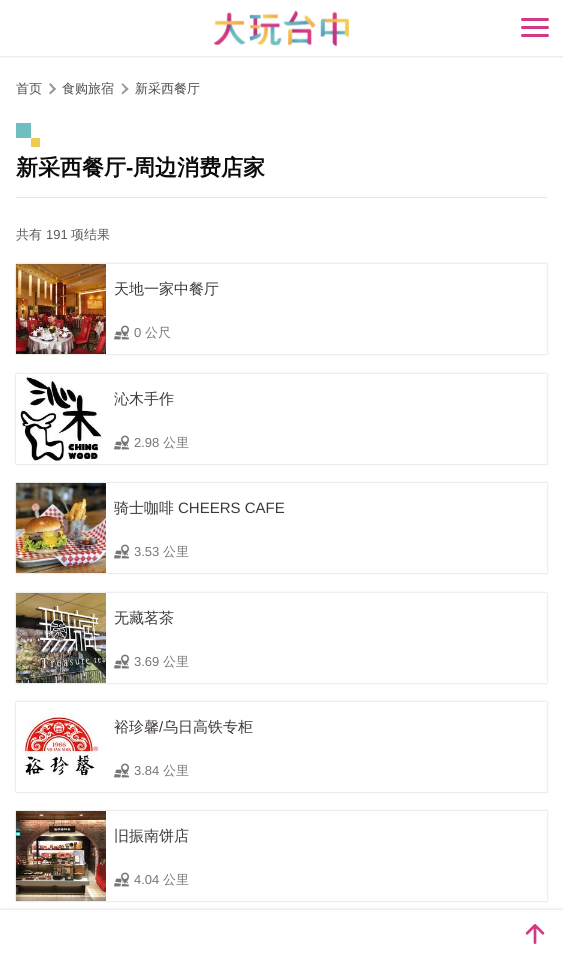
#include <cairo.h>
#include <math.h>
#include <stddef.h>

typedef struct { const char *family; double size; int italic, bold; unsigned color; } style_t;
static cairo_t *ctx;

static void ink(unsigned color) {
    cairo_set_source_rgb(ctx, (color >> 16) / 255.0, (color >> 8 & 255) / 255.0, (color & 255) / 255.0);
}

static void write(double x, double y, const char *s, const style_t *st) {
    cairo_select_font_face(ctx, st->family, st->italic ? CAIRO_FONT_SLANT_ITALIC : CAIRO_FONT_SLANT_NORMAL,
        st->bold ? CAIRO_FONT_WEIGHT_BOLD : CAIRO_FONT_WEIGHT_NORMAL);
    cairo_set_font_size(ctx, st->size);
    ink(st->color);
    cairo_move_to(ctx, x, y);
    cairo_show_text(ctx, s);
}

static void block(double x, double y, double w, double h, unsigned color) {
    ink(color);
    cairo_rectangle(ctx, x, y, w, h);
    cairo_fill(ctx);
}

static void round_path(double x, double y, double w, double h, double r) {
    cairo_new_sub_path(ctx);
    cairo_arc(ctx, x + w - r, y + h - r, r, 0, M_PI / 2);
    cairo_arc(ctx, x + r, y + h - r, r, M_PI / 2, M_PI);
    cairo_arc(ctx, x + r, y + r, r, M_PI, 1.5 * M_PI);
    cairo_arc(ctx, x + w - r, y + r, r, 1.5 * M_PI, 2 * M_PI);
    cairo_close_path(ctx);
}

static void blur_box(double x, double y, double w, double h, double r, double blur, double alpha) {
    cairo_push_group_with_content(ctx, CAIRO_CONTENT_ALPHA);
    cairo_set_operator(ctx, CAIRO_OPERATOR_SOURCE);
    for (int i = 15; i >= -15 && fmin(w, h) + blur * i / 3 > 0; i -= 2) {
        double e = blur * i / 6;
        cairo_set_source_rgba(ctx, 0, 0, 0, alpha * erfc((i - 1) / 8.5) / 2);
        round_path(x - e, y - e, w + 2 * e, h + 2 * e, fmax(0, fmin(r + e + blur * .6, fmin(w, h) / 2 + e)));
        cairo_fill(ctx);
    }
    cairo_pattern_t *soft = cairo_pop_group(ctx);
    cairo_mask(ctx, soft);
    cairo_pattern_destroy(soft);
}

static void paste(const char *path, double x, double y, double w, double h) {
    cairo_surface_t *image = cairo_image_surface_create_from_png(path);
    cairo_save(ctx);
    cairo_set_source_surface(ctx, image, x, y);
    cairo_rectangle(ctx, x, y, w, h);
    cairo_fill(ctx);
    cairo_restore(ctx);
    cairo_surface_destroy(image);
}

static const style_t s1 = {"WenQuanYi Zen Hei Medium", 13, 0, 0, 0x4c4c4c};
static const style_t s2 = {"WenQuanYi Zen Hei", 22, 0, 1, 0x0a0a0a};
static const style_t s3 = {"Liberation Sans", 22, 0, 1, 0x0a0a0a};
static const style_t s4 = {"WenQuanYi Zen Hei Medium", 13, 0, 0, 0x595959};
static const style_t s5 = {"Liberation Sans", 13, 0, 0, 0x595959};
static const style_t s6 = {"WenQuanYi Zen Hei Medium", 15, 0, 0, 0x3e3a39};
static const style_t s7 = {"Liberation Sans", 13, 0, 0, 0x767676};
static const style_t s8 = {"WenQuanYi Zen Hei Medium", 13, 0, 0, 0x767676};
static const style_t s9 = {"Liberation Sans", 15, 0, 0, 0x3e3a39};

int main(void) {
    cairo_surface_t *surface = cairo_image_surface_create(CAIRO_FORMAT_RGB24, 563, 958);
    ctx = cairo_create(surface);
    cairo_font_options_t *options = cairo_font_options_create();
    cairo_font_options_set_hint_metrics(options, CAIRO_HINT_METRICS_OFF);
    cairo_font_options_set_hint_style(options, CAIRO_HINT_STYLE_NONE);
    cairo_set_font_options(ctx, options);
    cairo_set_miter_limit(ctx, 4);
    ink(0xffffff);
    cairo_paint(ctx);
    cairo_save(ctx);
    cairo_rectangle(ctx, 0, 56, 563, 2);
    cairo_clip(ctx);
    ink(0x000000);
    blur_box(0, 0, 563, 56, 0, 2, 0.16);
    cairo_restore(ctx);
    paste("pic1.png", 214, 10, 135, 36);
    ink(0xd23982);
    round_path(521, 18, 28, 3, 1.5);
    cairo_fill(ctx);
    round_path(521, 26, 28, 3, 1.5);
    cairo_fill(ctx);
    round_path(521, 34, 28, 3, 1.5);
    cairo_fill(ctx);
    write(16, 93, "首页", &s1);
    ink(0x999999);
    cairo_new_path(ctx);
    cairo_move_to(ctx, 49, 84.5);
    cairo_line_to(ctx, 50.5, 83);
    cairo_line_to(ctx, 56, 89);
    cairo_line_to(ctx, 54.5, 90.5);
    cairo_close_path(ctx);
    cairo_fill(ctx);
    cairo_new_path(ctx);
    cairo_move_to(ctx, 49, 93);
    cairo_line_to(ctx, 54.5, 87.5);
    cairo_line_to(ctx, 56, 89);
    cairo_line_to(ctx, 50.5, 94.5);
    cairo_close_path(ctx);
    cairo_fill(ctx);
    write(62, 93, "食购旅宿", &s1);
    ink(0x999999);
    cairo_new_path(ctx);
    cairo_move_to(ctx, 121.5, 84.5);
    cairo_line_to(ctx, 122.5, 83);
    cairo_line_to(ctx, 128.5, 89);
    cairo_line_to(ctx, 127, 90.5);
    cairo_close_path(ctx);
    cairo_fill(ctx);
    cairo_new_path(ctx);
    cairo_move_to(ctx, 121.5, 93);
    cairo_line_to(ctx, 127, 87.5);
    cairo_line_to(ctx, 128.5, 89);
    cairo_line_to(ctx, 122.5, 94.5);
    cairo_close_path(ctx);
    cairo_fill(ctx);
    write(135, 93, "新采西餐厅", &s1);
    block(16, 197, 531, 1, 0xe6e6e6);
    block(16, 123, 15, 15, 0x70bebf);
    block(31, 138, 9, 9, 0xf2ca4f);
    write(16, 175, "新采西餐厅", &s2);
    write(126, 175, "-", &s3);
    write(133, 175, "周边消费店家", &s2);
    write(16, 239, "共有", &s4);
    write(46, 239, "191", &s5);
    write(71, 239, "项结果", &s4);
    cairo_save(ctx);
    cairo_set_fill_rule(ctx, CAIRO_FILL_RULE_EVEN_ODD);
    cairo_new_path(ctx);
    cairo_move_to(ctx, 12, 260);
    cairo_line_to(ctx, 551, 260);
    cairo_line_to(ctx, 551, 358);
    cairo_line_to(ctx, 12, 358);
    cairo_close_path(ctx);
    cairo_move_to(ctx, 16, 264);
    cairo_line_to(ctx, 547, 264);
    cairo_line_to(ctx, 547, 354);
    cairo_line_to(ctx, 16, 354);
    cairo_close_path(ctx);
    cairo_clip(ctx);
    ink(0xcccccc);
    blur_box(16, 264, 531, 90, 0, 1, 1);
    cairo_restore(ctx);
    paste("pic2.png", 16, 264, 90, 90);
    write(114, 294, "天地一家中餐厅", &s6);
    paste("pic3.png", 114, 325, 15, 15);
    write(134, 337, "0", &s7);
    write(145, 337, "公尺", &s8);
    cairo_save(ctx);
    cairo_set_fill_rule(ctx, CAIRO_FILL_RULE_EVEN_ODD);
    cairo_new_path(ctx);
    cairo_move_to(ctx, 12, 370);
    cairo_line_to(ctx, 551, 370);
    cairo_line_to(ctx, 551, 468);
    cairo_line_to(ctx, 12, 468);
    cairo_close_path(ctx);
    cairo_move_to(ctx, 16, 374);
    cairo_line_to(ctx, 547, 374);
    cairo_line_to(ctx, 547, 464);
    cairo_line_to(ctx, 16, 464);
    cairo_close_path(ctx);
    cairo_clip(ctx);
    ink(0xcccccc);
    blur_box(16, 374, 531, 90, 0, 1, 1);
    cairo_restore(ctx);
    paste("pic4.png", 16, 374, 90, 90);
    write(114, 404, "沁木手作", &s6);
    paste("pic3.png", 114, 435, 15, 15);
    write(134, 447, "2.98", &s7);
    write(163, 447, "公里", &s8);
    cairo_save(ctx);
    cairo_set_fill_rule(ctx, CAIRO_FILL_RULE_EVEN_ODD);
    cairo_new_path(ctx);
    cairo_move_to(ctx, 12, 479);
    cairo_line_to(ctx, 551, 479);
    cairo_line_to(ctx, 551, 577);
    cairo_line_to(ctx, 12, 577);
    cairo_close_path(ctx);
    cairo_move_to(ctx, 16, 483);
    cairo_line_to(ctx, 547, 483);
    cairo_line_to(ctx, 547, 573);
    cairo_line_to(ctx, 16, 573);
    cairo_close_path(ctx);
    cairo_clip(ctx);
    ink(0xcccccc);
    blur_box(16, 483, 531, 90, 0, 1, 1);
    cairo_restore(ctx);
    paste("pic5.png", 16, 483, 90, 90);
    write(114, 513, "骑士咖啡", &s6);
    write(178, 513, "CHEERS CAFE", &s9);
    paste("pic3.png", 114, 544, 15, 15);
    write(134, 556, "3.53", &s7);
    write(163, 556, "公里", &s8);
    cairo_save(ctx);
    cairo_set_fill_rule(ctx, CAIRO_FILL_RULE_EVEN_ODD);
    cairo_new_path(ctx);
    cairo_move_to(ctx, 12, 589);
    cairo_line_to(ctx, 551, 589);
    cairo_line_to(ctx, 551, 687);
    cairo_line_to(ctx, 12, 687);
    cairo_close_path(ctx);
    cairo_move_to(ctx, 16, 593);
    cairo_line_to(ctx, 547, 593);
    cairo_line_to(ctx, 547, 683);
    cairo_line_to(ctx, 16, 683);
    cairo_close_path(ctx);
    cairo_clip(ctx);
    ink(0xcccccc);
    blur_box(16, 593, 531, 90, 0, 1, 1);
    cairo_restore(ctx);
    paste("pic6.png", 16, 593, 90, 90);
    write(114, 623, "无藏茗茶", &s6);
    paste("pic3.png", 114, 654, 15, 15);
    write(134, 666, "3.69", &s7);
    write(163, 666, "公里", &s8);
    cairo_save(ctx);
    cairo_set_fill_rule(ctx, CAIRO_FILL_RULE_EVEN_ODD);
    cairo_new_path(ctx);
    cairo_move_to(ctx, 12, 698);
    cairo_line_to(ctx, 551, 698);
    cairo_line_to(ctx, 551, 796);
    cairo_line_to(ctx, 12, 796);
    cairo_close_path(ctx);
    cairo_move_to(ctx, 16, 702);
    cairo_line_to(ctx, 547, 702);
    cairo_line_to(ctx, 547, 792);
    cairo_line_to(ctx, 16, 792);
    cairo_close_path(ctx);
    cairo_clip(ctx);
    ink(0xcccccc);
    blur_box(16, 702, 531, 90, 0, 1, 1);
    cairo_restore(ctx);
    paste("pic7.png", 16, 702, 90, 90);
    write(114, 732, "裕珍馨", &s6);
    write(159, 732, "/", &s9);
    write(163, 732, "乌日高铁专柜", &s6);
    paste("pic3.png", 114, 763, 15, 15);
    write(134, 775, "3.84", &s7);
    write(163, 775, "公里", &s8);
    cairo_save(ctx);
    cairo_set_fill_rule(ctx, CAIRO_FILL_RULE_EVEN_ODD);
    cairo_new_path(ctx);
    cairo_move_to(ctx, 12, 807);
    cairo_line_to(ctx, 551, 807);
    cairo_line_to(ctx, 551, 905);
    cairo_line_to(ctx, 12, 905);
    cairo_close_path(ctx);
    cairo_move_to(ctx, 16, 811);
    cairo_line_to(ctx, 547, 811);
    cairo_line_to(ctx, 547, 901);
    cairo_line_to(ctx, 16, 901);
    cairo_close_path(ctx);
    cairo_clip(ctx);
    ink(0xcccccc);
    blur_box(16, 811, 531, 90, 0, 1, 1);
    cairo_restore(ctx);
    paste("pic8.png", 16, 811, 90, 90);
    write(114, 841, "旧振南饼店", &s6);
    paste("pic3.png", 114, 872, 15, 15);
    write(134, 884, "4.04", &s7);
    write(163, 884, "公里", &s8);
    ink(0x000000);
    blur_box(0, 910, 563, 48, 0, 2, 0.16);
    block(0, 910, 563, 48, 0xffffff);
    paste("pic9.png", 525, 924, 20, 20);
    cairo_surface_write_to_png(surface, "screenshot.png");
    cairo_font_options_destroy(options);
    cairo_destroy(ctx);
    cairo_surface_destroy(surface);
    return 0;
}
